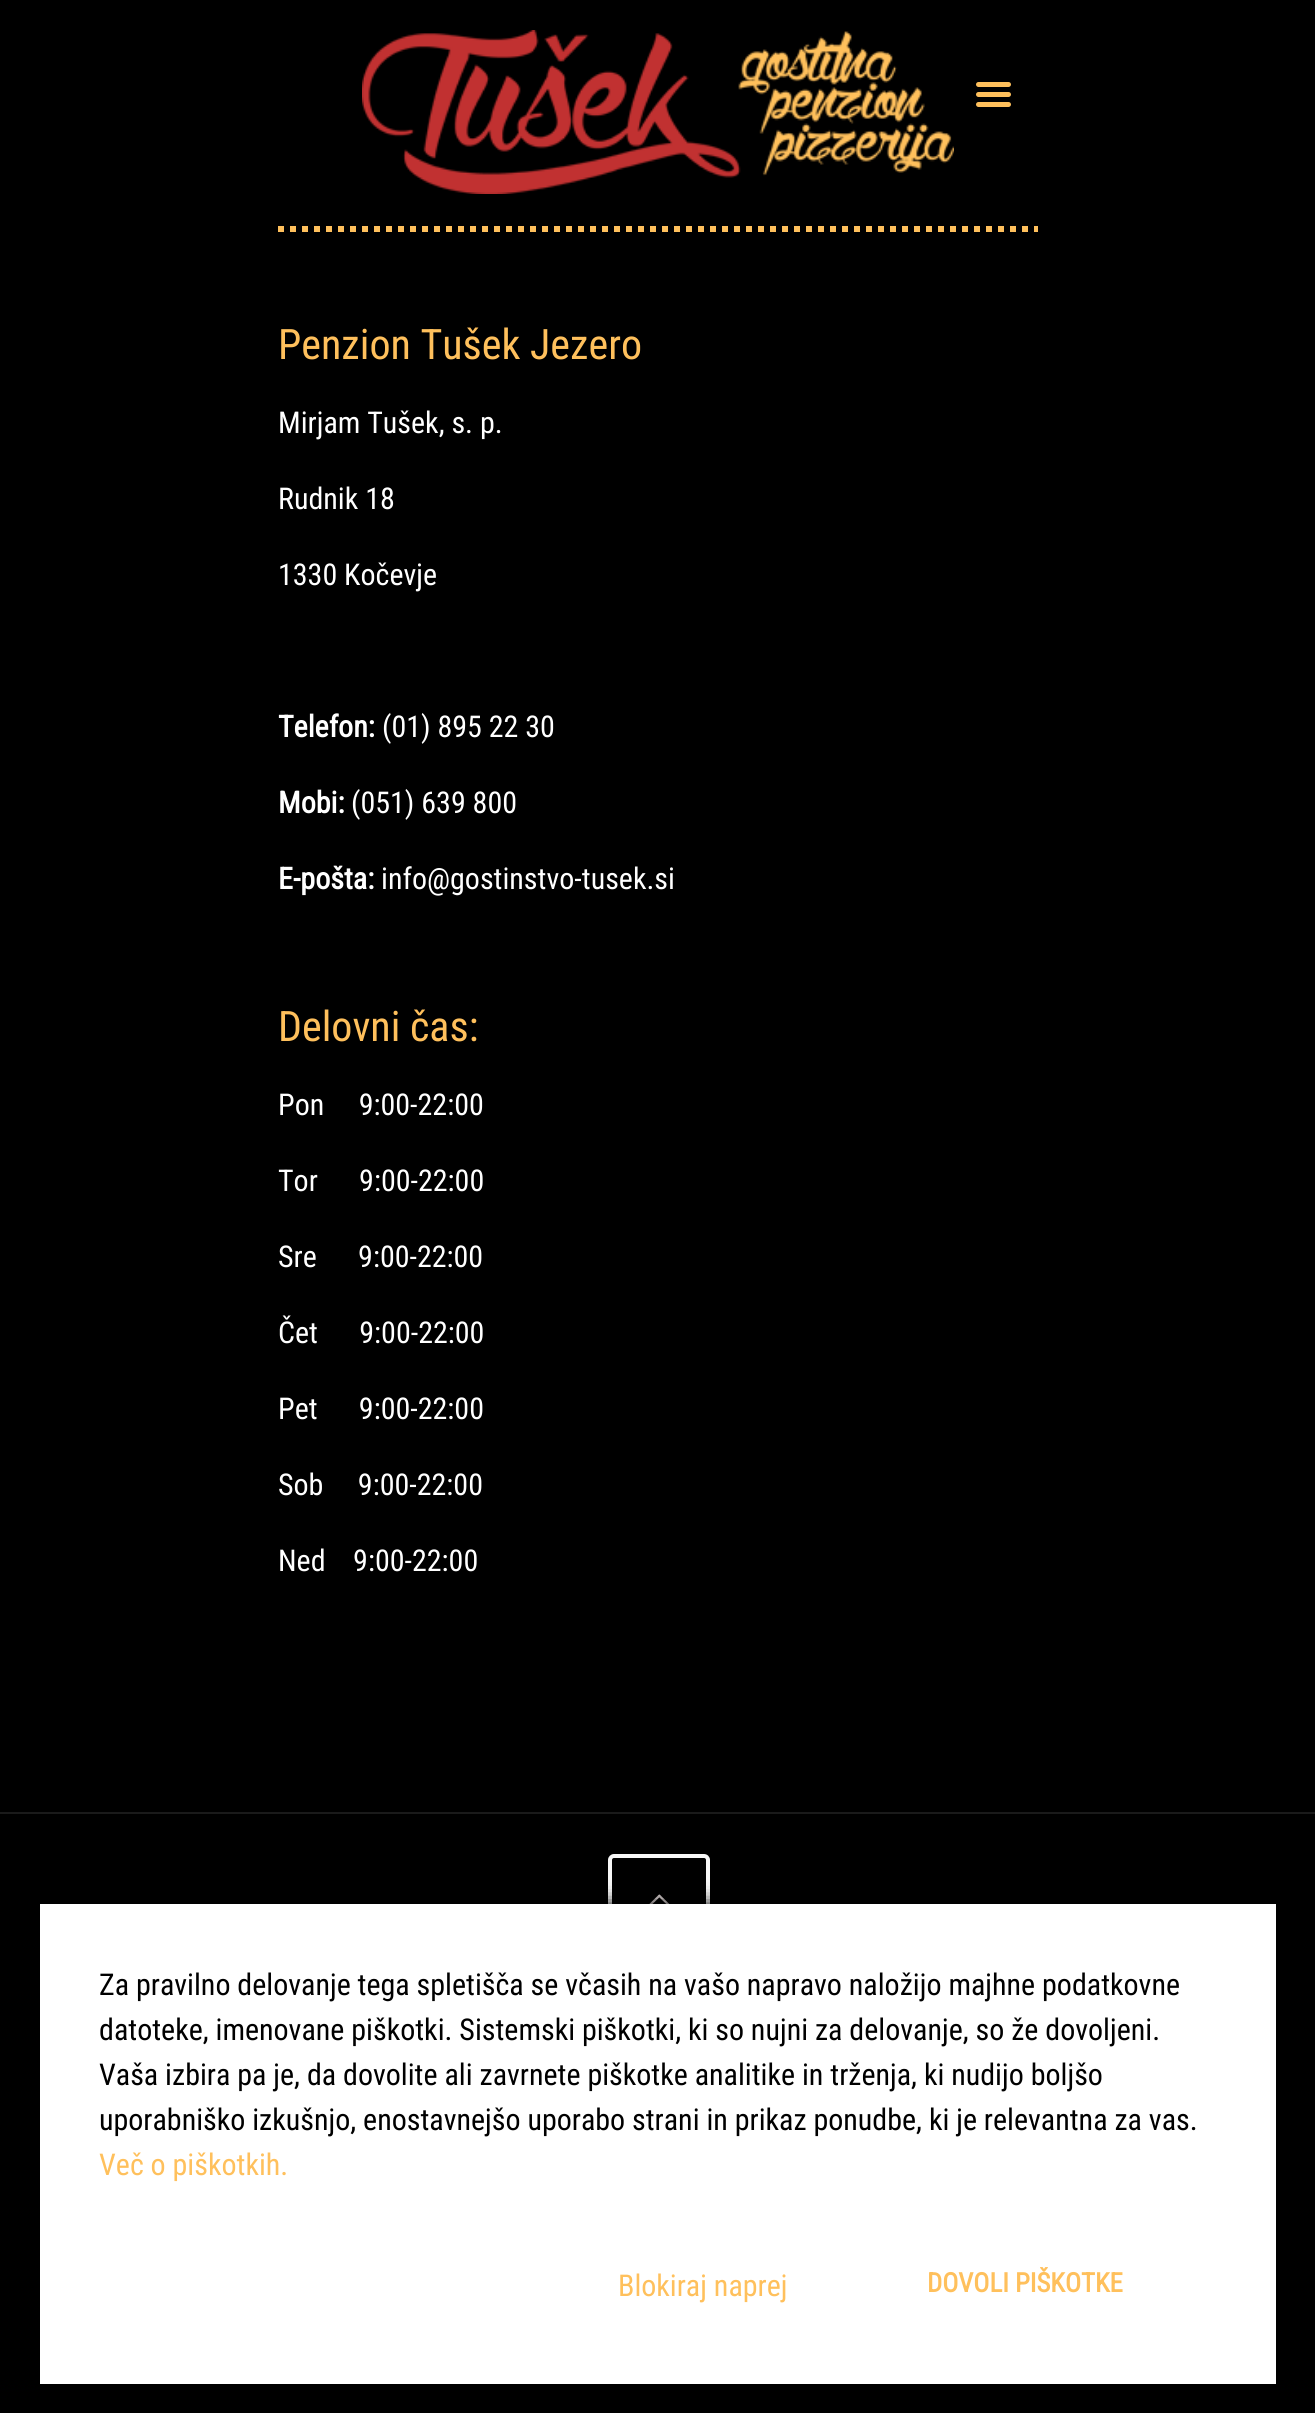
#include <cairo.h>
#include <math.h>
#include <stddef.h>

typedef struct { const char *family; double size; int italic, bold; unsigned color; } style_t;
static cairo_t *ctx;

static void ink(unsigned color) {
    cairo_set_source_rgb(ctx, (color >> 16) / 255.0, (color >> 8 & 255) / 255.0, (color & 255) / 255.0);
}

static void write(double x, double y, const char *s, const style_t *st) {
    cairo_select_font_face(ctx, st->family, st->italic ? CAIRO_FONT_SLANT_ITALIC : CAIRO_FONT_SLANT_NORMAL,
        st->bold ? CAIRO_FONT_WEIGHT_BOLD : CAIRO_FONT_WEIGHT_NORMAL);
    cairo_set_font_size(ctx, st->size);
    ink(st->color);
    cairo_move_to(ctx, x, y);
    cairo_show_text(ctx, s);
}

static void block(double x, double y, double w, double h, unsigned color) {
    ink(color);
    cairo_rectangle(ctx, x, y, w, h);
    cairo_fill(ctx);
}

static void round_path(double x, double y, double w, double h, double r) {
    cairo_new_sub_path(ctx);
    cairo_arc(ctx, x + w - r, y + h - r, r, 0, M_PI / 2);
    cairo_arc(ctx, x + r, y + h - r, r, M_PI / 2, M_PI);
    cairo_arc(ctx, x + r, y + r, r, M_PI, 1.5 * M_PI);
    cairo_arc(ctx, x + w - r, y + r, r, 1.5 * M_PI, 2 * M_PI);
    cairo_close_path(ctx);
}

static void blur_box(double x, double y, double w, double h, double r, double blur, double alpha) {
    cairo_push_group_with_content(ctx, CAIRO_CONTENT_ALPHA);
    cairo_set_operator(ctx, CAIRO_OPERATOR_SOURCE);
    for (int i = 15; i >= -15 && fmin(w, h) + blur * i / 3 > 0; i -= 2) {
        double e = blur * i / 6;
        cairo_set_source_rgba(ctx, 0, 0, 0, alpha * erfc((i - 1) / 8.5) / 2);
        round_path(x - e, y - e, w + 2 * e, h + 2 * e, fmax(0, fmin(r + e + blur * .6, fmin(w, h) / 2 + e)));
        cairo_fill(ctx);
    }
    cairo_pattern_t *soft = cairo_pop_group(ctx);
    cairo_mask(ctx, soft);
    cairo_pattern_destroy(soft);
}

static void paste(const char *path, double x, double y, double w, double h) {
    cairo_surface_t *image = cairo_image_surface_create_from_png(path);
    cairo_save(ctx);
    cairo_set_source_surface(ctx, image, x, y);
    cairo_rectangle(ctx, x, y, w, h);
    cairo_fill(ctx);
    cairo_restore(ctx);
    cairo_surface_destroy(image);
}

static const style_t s1 = {"Roboto Condensed", 42, 0, 0, 0xffc05c};
static const style_t s2 = {"Roboto Condensed", 30, 0, 0, 0xffffff};
static const style_t s3 = {"Roboto Condensed", 30, 0, 1, 0xffffff};
static const style_t s4 = {"Roboto Condensed", 30, 0, 0, 0x000000};
static const style_t s5 = {"Roboto Condensed", 30, 0, 0, 0xffc05c};
static const style_t s6 = {"Roboto Condensed", 26.75, 0, 1, 0xffc05c};

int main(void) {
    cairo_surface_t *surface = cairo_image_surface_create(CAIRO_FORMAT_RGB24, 1315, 2413);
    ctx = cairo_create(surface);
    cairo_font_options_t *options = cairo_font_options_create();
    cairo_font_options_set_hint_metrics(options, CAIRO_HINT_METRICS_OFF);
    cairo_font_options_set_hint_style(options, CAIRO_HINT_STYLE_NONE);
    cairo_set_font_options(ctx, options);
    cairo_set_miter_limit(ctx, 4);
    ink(0x000000);
    cairo_paint(ctx);
    cairo_new_path(ctx);
    cairo_move_to(ctx, 278, 229);
    cairo_line_to(ctx, 1038, 229);
    ink(0xffc05c);
    cairo_set_line_width(ctx, 6);
    cairo_set_dash(ctx, (double[]){6, 6}, 2, 0);
    cairo_stroke(ctx);
    paste("pic1.png", 362, 30, 592, 164);
    paste("pic2.png", 976, 82, 35, 25);
    write(278, 359, "Penzion Tušek Jezero", &s1);
    write(278, 433, "Mirjam Tušek, s. p.", &s2);
    write(278, 509, "Rudnik 18", &s2);
    write(278, 585, "1330 Kočevje", &s2);
    write(278, 737, "Telefon:", &s3);
    write(382, 737, "(01) 895 22 30", &s2);
    write(278, 813, "Mobi:", &s3);
    write(351, 813, "(051) 639 800", &s2);
    write(278, 889, "E-pošta:", &s3);
    write(381, 889, "info@gostinstvo-tusek.si", &s2);
    write(278, 1041, "Delovni čas:", &s1);
    write(278, 1115, "Pon     9:00-22:00", &s2);
    write(278, 1191, "Tor      9:00-22:00", &s2);
    write(278, 1267, "Sre      9:00-22:00", &s2);
    write(278, 1343, "Čet      9:00-22:00", &s2);
    write(278, 1419, "Pet      9:00-22:00", &s2);
    write(278, 1495, "Sob     9:00-22:00", &s2);
    write(278, 1571, "Ned    9:00-22:00", &s2);
    block(0, 1812, 1315, 2, 0x1a1a1a);
    round_path(610, 1856, 98, 94, 4);
    ink(0xf7f7f7);
    cairo_set_line_width(ctx, 4);
    cairo_set_dash(ctx, NULL, 0, 0);
    cairo_stroke(ctx);
    paste("pic3.png", 649, 1894, 21, 10);
    ink(0x000000);
    blur_box(40, 1904, 1236, 480, 0, 10, 1);
    block(40, 1904, 1236, 480, 0xffffff);
    write(99, 1995, "Za pravilno delovanje tega spletišča se včasih na vašo napravo naložijo majhne podatkovne", &s4);
    write(99, 2040, "datoteke, imenovane piškotki. Sistemski piškotki, ki so nujni za delovanje, so že dovoljeni.", &s4);
    write(99, 2085, "Vaša izbira pa je, da dovolite ali zavrnete piškotke analitike in trženja, ki nudijo boljšo", &s4);
    write(99, 2130, "uporabniško izkušnjo, enostavnejšo uporabo strani in prikaz ponudbe, ki je relevantna za vas.", &s4);
    write(99, 2175, "Več o piškotkih.", &s5);
    write(618, 2296, "Blokiraj naprej", &s5);
    write(927, 2292, "DOVOLI PIŠKOTKE", &s6);
    cairo_surface_write_to_png(surface, "screenshot.png");
    cairo_font_options_destroy(options);
    cairo_destroy(ctx);
    cairo_surface_destroy(surface);
    return 0;
}
